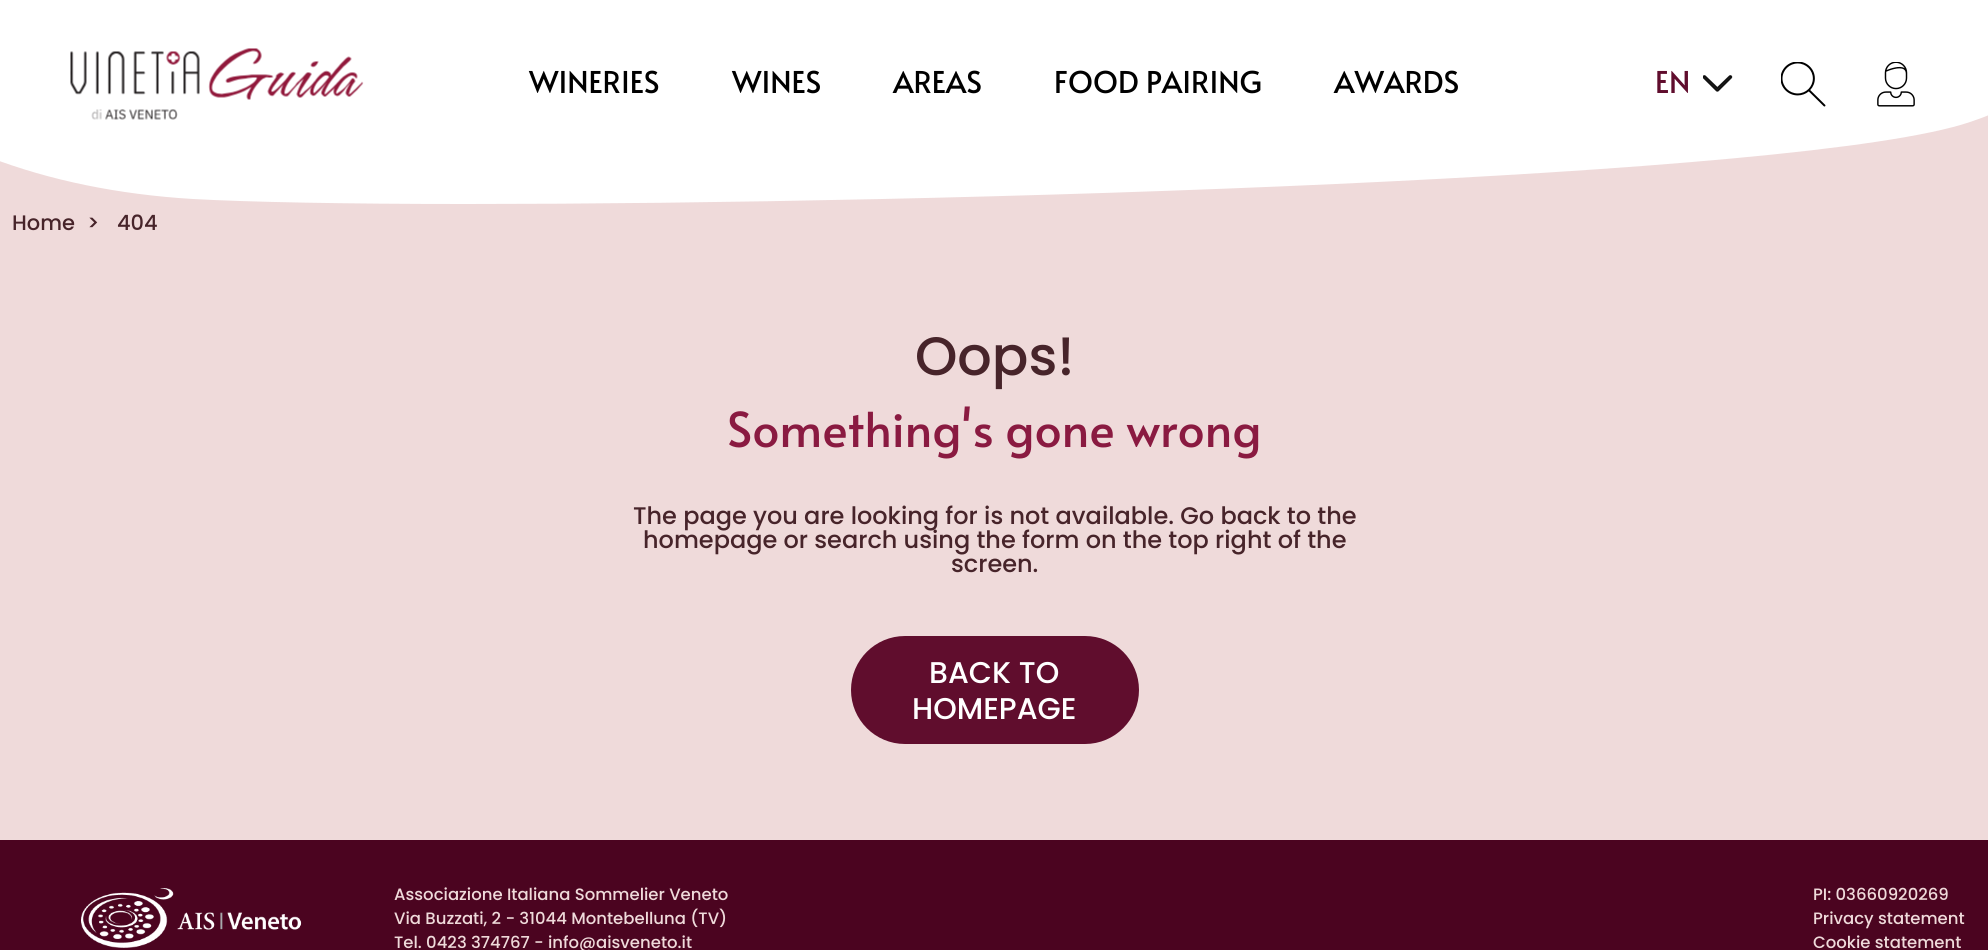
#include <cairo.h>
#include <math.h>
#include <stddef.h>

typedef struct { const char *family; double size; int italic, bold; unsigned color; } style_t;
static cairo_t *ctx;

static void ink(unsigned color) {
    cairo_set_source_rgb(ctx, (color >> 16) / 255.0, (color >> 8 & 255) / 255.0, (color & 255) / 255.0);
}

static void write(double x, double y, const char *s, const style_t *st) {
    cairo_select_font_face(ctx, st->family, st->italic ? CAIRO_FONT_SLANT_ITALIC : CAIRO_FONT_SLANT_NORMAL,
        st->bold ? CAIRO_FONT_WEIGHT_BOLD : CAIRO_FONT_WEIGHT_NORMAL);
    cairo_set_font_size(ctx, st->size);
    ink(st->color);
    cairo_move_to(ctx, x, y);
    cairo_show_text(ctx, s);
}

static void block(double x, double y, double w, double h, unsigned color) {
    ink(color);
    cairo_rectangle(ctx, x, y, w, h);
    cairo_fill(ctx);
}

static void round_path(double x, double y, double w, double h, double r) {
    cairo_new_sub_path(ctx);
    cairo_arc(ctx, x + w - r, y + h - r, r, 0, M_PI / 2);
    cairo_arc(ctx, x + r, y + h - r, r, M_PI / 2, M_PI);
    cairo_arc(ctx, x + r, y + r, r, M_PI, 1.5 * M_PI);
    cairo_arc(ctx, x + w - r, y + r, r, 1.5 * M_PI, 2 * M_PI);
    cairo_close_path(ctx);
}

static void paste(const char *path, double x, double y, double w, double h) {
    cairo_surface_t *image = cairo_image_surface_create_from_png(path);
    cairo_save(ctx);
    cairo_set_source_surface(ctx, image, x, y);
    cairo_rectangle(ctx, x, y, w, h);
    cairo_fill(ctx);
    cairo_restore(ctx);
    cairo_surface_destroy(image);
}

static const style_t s1 = {"Alata", 30, 0, 0, 0x000000};
static const style_t s2 = {"Alata", 30, 0, 0, 0x600d2d};
static const style_t s3 = {"Poppins Medium", 21, 0, 0, 0x47242a};
static const style_t s4 = {"Poppins Medium", 54, 0, 0, 0x47242a};
static const style_t s5 = {"Alata", 48, 0, 0, 0x8a1a41};
static const style_t s6 = {"Poppins Medium", 24, 0, 0, 0x47242a};
static const style_t s7 = {"Poppins Medium", 30, 0, 0, 0xffffff};
static const style_t s8 = {"Poppins Medium", 16.5, 0, 0, 0xefdada};

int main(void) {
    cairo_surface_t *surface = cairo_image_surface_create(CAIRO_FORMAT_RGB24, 1988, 950);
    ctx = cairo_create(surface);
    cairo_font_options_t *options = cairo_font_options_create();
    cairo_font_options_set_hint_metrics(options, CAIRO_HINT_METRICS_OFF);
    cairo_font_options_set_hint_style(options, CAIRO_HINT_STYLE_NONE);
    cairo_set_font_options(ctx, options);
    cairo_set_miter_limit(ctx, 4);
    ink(0xefdada);
    cairo_paint(ctx);
    ink(0xffffff);
    cairo_new_path(ctx);
    cairo_move_to(ctx, 193, 199);
    cairo_curve_to(ctx, 43, 190, -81, 142, -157, 66);
    cairo_line_to(ctx, -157, 0);
    cairo_line_to(ctx, 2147, 0);
    cairo_curve_to(ctx, 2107, 53, 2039, 99, 1970, 122);
    cairo_curve_to(ctx, 1805, 178, 944, 204, 466, 204);
    cairo_curve_to(ctx, 344, 204, 247, 202, 193, 199);
    cairo_close_path(ctx);
    cairo_fill(ctx);
    paste("pic1.png", 70, 48, 294, 72);
    write(529, 93, "WINERIES", &s1);
    write(732, 93, "WINES", &s1);
    write(893, 93, "AREAS", &s1);
    write(1054, 93, "FOOD PAIRING", &s1);
    write(1334, 93, "AWARDS", &s1);
    write(1655, 93, "EN", &s2);
    paste("pic2.png", 1703, 75, 30, 17);
    paste("pic3.png", 1781, 62, 45, 45);
    paste("pic4.png", 1877, 62, 38, 45);
    write(12, 230, "Home", &s3);
    write(87, 230, ">", &s3);
    write(117, 230, "404", &s3);
    write(915, 375, "Oops!", &s4);
    write(727, 447, "Something's gone wrong", &s5);
    write(633, 524, "The page you are looking for is not available. Go back to the", &s6);
    write(643, 548, "homepage or search using the form on the top right of the", &s6);
    write(951, 572, "screen.", &s6);
    ink(0x600d2d);
    round_path(851, 636, 288, 108, 54);
    cairo_fill(ctx);
    write(929, 683, "BACK TO", &s7);
    write(912, 719, "HOMEPAGE", &s7);
    block(0, 840, 1988, 110, 0x4b0420);
    paste("pic5.png", 81, 888, 221, 60);
    write(394, 900, "Associazione Italiana Sommelier Veneto", &s8);
    write(394, 924, "Via Buzzati, 2 - 31044 Montebelluna (TV)", &s8);
    write(394, 948, "Tel. 0423 374767 - info@aisveneto.it", &s8);
    write(1813, 900, "PI: 03660920269", &s8);
    write(1813, 924, "Privacy statement", &s8);
    write(1813, 948, "Cookie statement", &s8);
    cairo_surface_write_to_png(surface, "screenshot.png");
    cairo_font_options_destroy(options);
    cairo_destroy(ctx);
    cairo_surface_destroy(surface);
    return 0;
}
